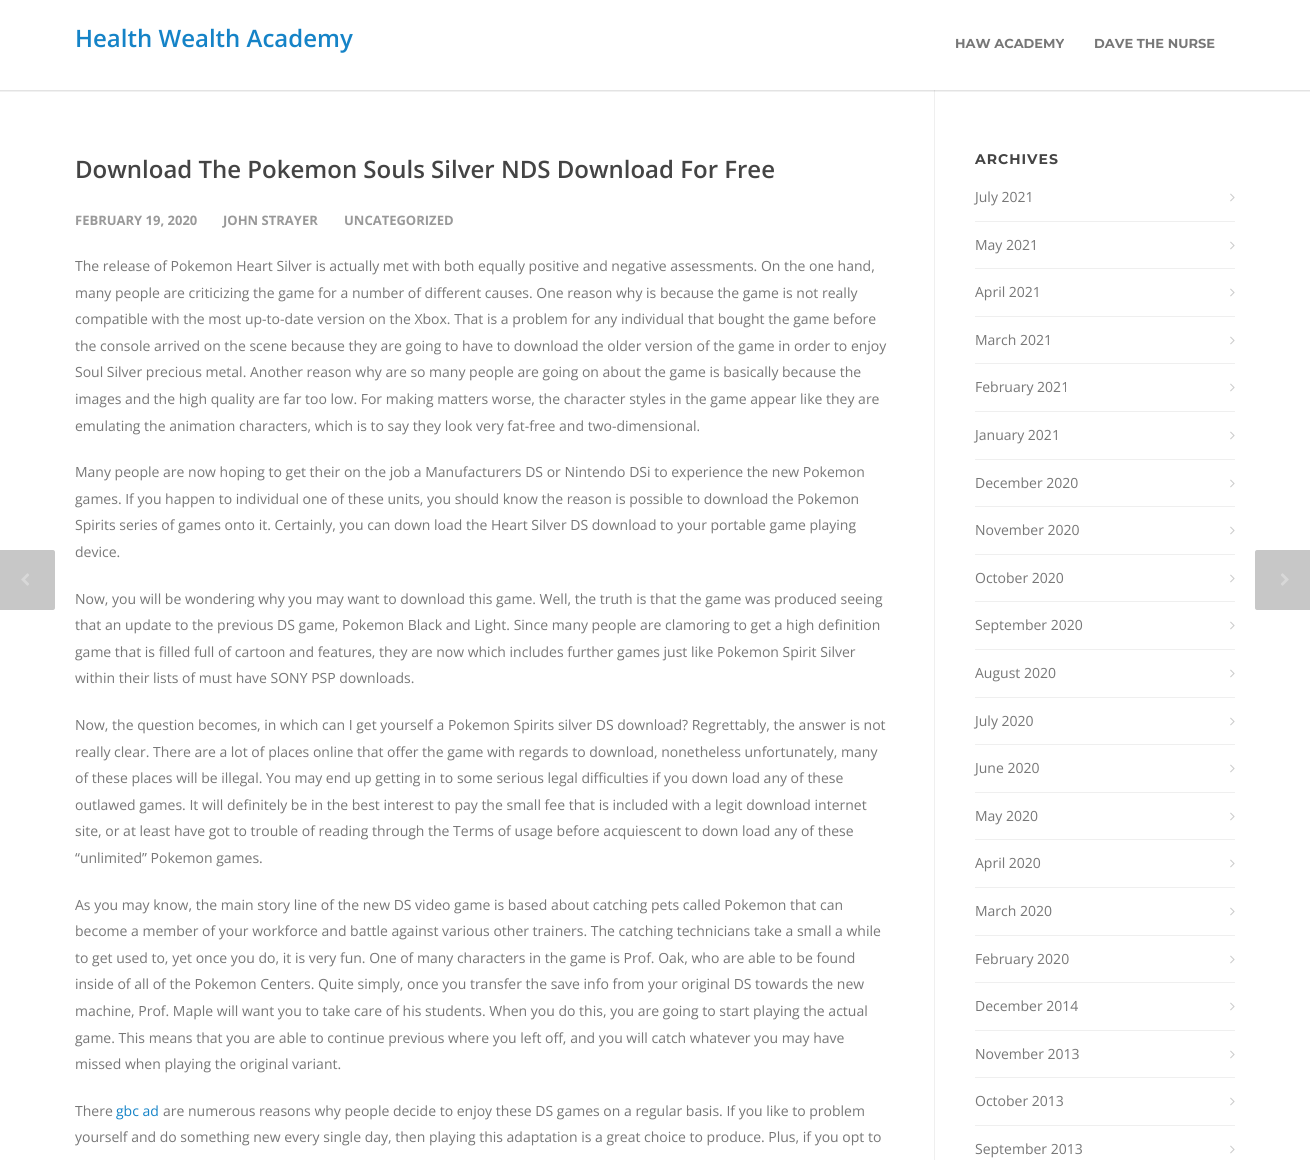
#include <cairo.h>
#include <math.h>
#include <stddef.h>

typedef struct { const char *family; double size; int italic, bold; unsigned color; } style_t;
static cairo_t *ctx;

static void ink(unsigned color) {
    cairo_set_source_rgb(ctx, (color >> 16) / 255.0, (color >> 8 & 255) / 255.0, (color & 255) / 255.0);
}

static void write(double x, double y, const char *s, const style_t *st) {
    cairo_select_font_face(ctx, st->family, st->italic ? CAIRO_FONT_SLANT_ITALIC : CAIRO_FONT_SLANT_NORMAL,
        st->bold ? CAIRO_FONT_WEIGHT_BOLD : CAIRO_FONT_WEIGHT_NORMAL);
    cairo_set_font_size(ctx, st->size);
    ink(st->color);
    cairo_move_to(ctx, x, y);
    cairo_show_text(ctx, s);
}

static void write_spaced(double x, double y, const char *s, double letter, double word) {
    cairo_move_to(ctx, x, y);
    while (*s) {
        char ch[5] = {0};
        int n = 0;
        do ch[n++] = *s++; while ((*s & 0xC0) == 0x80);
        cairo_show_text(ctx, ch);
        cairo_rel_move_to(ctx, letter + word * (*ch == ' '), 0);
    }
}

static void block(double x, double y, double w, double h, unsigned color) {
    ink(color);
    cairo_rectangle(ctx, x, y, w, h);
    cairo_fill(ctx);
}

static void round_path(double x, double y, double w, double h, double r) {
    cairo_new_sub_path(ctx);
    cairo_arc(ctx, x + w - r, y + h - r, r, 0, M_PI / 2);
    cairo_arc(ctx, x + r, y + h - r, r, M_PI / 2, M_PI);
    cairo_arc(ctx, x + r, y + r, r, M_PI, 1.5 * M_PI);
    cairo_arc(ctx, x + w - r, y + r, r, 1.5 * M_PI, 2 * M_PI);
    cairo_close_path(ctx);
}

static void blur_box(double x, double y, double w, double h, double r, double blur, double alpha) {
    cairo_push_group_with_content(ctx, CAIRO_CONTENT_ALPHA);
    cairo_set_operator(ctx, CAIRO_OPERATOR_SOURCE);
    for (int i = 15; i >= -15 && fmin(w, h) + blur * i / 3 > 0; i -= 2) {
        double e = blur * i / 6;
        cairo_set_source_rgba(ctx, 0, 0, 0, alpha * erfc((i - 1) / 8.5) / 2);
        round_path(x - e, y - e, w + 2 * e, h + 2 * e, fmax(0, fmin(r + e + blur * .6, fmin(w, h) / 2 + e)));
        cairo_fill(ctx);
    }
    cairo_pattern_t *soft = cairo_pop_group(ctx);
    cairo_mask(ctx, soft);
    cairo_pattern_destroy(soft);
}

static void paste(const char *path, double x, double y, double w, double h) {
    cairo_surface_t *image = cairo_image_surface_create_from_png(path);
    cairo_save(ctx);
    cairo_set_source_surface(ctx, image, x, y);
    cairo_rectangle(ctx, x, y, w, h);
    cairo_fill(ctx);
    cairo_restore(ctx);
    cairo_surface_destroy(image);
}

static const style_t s1 = {"Open Sans SemiBold", 24, 0, 0, 0x1583c7};
static const style_t s2 = {"Montserrat", 13, 0, 1, 0x777777};
static const style_t s3 = {"Open Sans SemiBold", 24, 0, 0, 0x444444};
static const style_t s4 = {"Open Sans", 13, 0, 1, 0x999999};
static const style_t s5 = {"Open Sans", 14, 0, 0, 0x777777};
static const style_t s6 = {"Open Sans", 14, 0, 0, 0x1583c7};

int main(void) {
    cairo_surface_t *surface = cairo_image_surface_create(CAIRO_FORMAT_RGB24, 1310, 1160);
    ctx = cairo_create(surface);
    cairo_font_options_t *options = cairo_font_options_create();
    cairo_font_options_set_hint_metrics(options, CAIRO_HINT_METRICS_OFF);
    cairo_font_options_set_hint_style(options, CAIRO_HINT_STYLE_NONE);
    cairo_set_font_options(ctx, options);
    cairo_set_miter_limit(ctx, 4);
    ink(0xffffff);
    cairo_paint(ctx);
    block(934, 90, 1, 1070, 0xefefef);
    cairo_save(ctx);
    cairo_rectangle(ctx, 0, 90, 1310, 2);
    cairo_clip(ctx);
    ink(0x000000);
    blur_box(-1, -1, 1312, 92, 0, 1, 0.16);
    cairo_restore(ctx);
    write(75, 47, "Health Wealth Academy", &s1);
    write(955, 48, "HAW ACADEMY", &s2);
    write(1094, 48, "DAVE THE NURSE", &s2);
    write(75, 178, "Download The Pokemon Souls Silver NDS Download For Free", &s3);
    write(75, 225, "FEBRUARY 19, 2020", &s4);
    write(223, 225, "JOHN STRAYER", &s4);
    write(344, 225, "UNCATEGORIZED", &s4);
    write(75, 271, "The release of Pokemon Heart Silver is actually met with both equally positive and negative assessments. On the one hand,", &s5);
    write(75, 298, "many people are criticizing the game for a number of different causes. One reason why is because the game is not really", &s5);
    write(75, 324, "compatible with the most up-to-date version on the Xbox. That is a problem for any individual that bought the game before", &s5);
    write(75, 351, "the console arrived on the scene because they are going to have to download the older version of the game in order to enjoy", &s5);
    write(75, 377, "Soul Silver precious metal. Another reason why are so many people are going on about the game is basically because the", &s5);
    write(75, 404, "images and the high quality are far too low. For making matters worse, the character styles in the game appear like they are", &s5);
    write(75, 431, "emulating the animation characters, which is to say they look very fat-free and two-dimensional.", &s5);
    write(75, 477, "Many people are now hoping to get their on the job a Manufacturers DS or Nintendo DSi to experience the new Pokemon", &s5);
    write(75, 504, "games. If you happen to individual one of these units, you should know the reason is possible to download the Pokemon", &s5);
    write(75, 530, "Spirits series of games onto it. Certainly, you can down load the Heart Silver DS download to your portable game playing", &s5);
    write(75, 557, "device.", &s5);
    write(75, 604, "Now, you will be wondering why you may want to download this game. Well, the truth is that the game was produced seeing", &s5);
    write(75, 630, "that an update to the previous DS game, Pokemon Black and Light. Since many people are clamoring to get a high definition", &s5);
    write(75, 657, "game that is filled full of cartoon and features, they are now which includes further games just like Pokemon Spirit Silver", &s5);
    write(75, 683, "within their lists of must have SONY PSP downloads.", &s5);
    write(75, 730, "Now, the question becomes, in which can I get yourself a Pokemon Spirits silver DS download? Regrettably, the answer is not", &s5);
    write(75, 757, "really clear. There are a lot of places online that offer the game with regards to download, nonetheless unfortunately, many", &s5);
    write(75, 783, "of these places will be illegal. You may end up getting in to some serious legal difficulties if you down load any of these", &s5);
    write(75, 810, "outlawed games. It will definitely be in the best interest to pay the small fee that is included with a legit download internet", &s5);
    write(75, 836, "site, or at least have got to trouble of reading through the Terms of usage before acquiescent to down load any of these", &s5);
    write(75, 863, "“unlimited” Pokemon games.", &s5);
    write(75, 910, "As you may know, the main story line of the new DS video game is based about catching pets called Pokemon that can", &s5);
    write(75, 936, "become a member of your workforce and battle against various other trainers. The catching technicians take a small a while", &s5);
    write(75, 963, "to get used to, yet once you do, it is very fun. One of many characters in the game is Prof. Oak, who are able to be found", &s5);
    write(75, 989, "inside of all of the Pokemon Centers. Quite simply, once you transfer the save info from your original DS towards the new", &s5);
    write(75, 1016, "machine, Prof. Maple will want you to take care of his students. When you do this, you are going to start playing the actual", &s5);
    write(75, 1043, "game. This means that you are able to continue previous where you left off, and you will catch whatever you may have", &s5);
    write(75, 1069, "missed when playing the original variant.", &s5);
    write(75, 1116, "There", &s5);
    write(116, 1116, "gbc ad", &s6);
    write(163, 1116, "are numerous reasons why people decide to enjoy these DS games on a regular basis. If you like to problem", &s5);
    write(75, 1142, "yourself and do something new every single day, then playing this adaptation is a great choice to produce. Plus, if you opt to", &s5);
    ink(0xc7c7c7);
    cairo_new_path(ctx);
    cairo_move_to(ctx, -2, 550);
    cairo_line_to(ctx, 53, 550);
    cairo_curve_to(ctx, 54, 550, 55, 551, 55, 552);
    cairo_line_to(ctx, 55, 608);
    cairo_curve_to(ctx, 55, 609, 54, 610, 53, 610);
    cairo_line_to(ctx, -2, 610);
    cairo_close_path(ctx);
    cairo_fill(ctx);
    paste("pic1.png", 21, 573, 8, 13);
    cairo_new_path(ctx);
    cairo_move_to(ctx, 1257, 550);
    cairo_line_to(ctx, 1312, 550);
    cairo_line_to(ctx, 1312, 610);
    cairo_line_to(ctx, 1257, 610);
    cairo_curve_to(ctx, 1256, 610, 1255, 609, 1255, 608);
    cairo_line_to(ctx, 1255, 552);
    cairo_curve_to(ctx, 1255, 551, 1256, 550, 1257, 550);
    cairo_close_path(ctx);
    cairo_fill(ctx);
    paste("pic2.png", 1281, 573, 8, 13);
    cairo_select_font_face(ctx, "Montserrat", CAIRO_FONT_SLANT_NORMAL, CAIRO_FONT_WEIGHT_BOLD);
    ink(0x444444);
    write_spaced(975, 164, "ARCHIVES", 1, 0);
    block(975, 221, 260, 1, 0xefefef);
    write(975, 202, "July 2021", &s5);
    paste("pic3.png", 1230, 193, 5, 9);
    block(975, 268, 260, 1, 0xefefef);
    write(975, 250, "May 2021", &s5);
    paste("pic3.png", 1230, 241, 5, 9);
    block(975, 316, 260, 1, 0xefefef);
    write(975, 297, "April 2021", &s5);
    paste("pic3.png", 1230, 288, 5, 9);
    block(975, 363, 260, 1, 0xefefef);
    write(975, 345, "March 2021", &s5);
    paste("pic3.png", 1230, 336, 5, 9);
    block(975, 411, 260, 1, 0xefefef);
    write(975, 392, "February 2021", &s5);
    paste("pic3.png", 1230, 383, 5, 9);
    block(975, 459, 260, 1, 0xefefef);
    write(975, 440, "January 2021", &s5);
    paste("pic3.png", 1230, 431, 5, 9);
    block(975, 506, 260, 1, 0xefefef);
    write(975, 488, "December 2020", &s5);
    paste("pic3.png", 1230, 479, 5, 9);
    block(975, 554, 260, 1, 0xefefef);
    write(975, 535, "November 2020", &s5);
    paste("pic3.png", 1230, 526, 5, 9);
    block(975, 601, 260, 1, 0xefefef);
    write(975, 583, "October 2020", &s5);
    paste("pic3.png", 1230, 574, 5, 9);
    block(975, 649, 260, 1, 0xefefef);
    write(975, 630, "September 2020", &s5);
    paste("pic3.png", 1230, 621, 5, 9);
    block(975, 697, 260, 1, 0xefefef);
    write(975, 678, "August 2020", &s5);
    paste("pic3.png", 1230, 669, 5, 9);
    block(975, 744, 260, 1, 0xefefef);
    write(975, 726, "July 2020", &s5);
    paste("pic3.png", 1230, 717, 5, 9);
    block(975, 792, 260, 1, 0xefefef);
    write(975, 773, "June 2020", &s5);
    paste("pic3.png", 1230, 764, 5, 9);
    block(975, 839, 260, 1, 0xefefef);
    write(975, 821, "May 2020", &s5);
    paste("pic3.png", 1230, 812, 5, 9);
    block(975, 887, 260, 1, 0xefefef);
    write(975, 868, "April 2020", &s5);
    paste("pic3.png", 1230, 859, 5, 9);
    block(975, 935, 260, 1, 0xefefef);
    write(975, 916, "March 2020", &s5);
    paste("pic3.png", 1230, 907, 5, 9);
    block(975, 982, 260, 1, 0xefefef);
    write(975, 964, "February 2020", &s5);
    paste("pic3.png", 1230, 955, 5, 9);
    block(975, 1030, 260, 1, 0xefefef);
    write(975, 1011, "December 2014", &s5);
    paste("pic3.png", 1230, 1002, 5, 9);
    block(975, 1077, 260, 1, 0xefefef);
    write(975, 1059, "November 2013", &s5);
    paste("pic3.png", 1230, 1050, 5, 9);
    block(975, 1125, 260, 1, 0xefefef);
    write(975, 1106, "October 2013", &s5);
    paste("pic3.png", 1230, 1097, 5, 9);
    write(975, 1154, "September 2013", &s5);
    paste("pic3.png", 1230, 1145, 5, 9);
    cairo_surface_write_to_png(surface, "screenshot.png");
    cairo_font_options_destroy(options);
    cairo_destroy(ctx);
    cairo_surface_destroy(surface);
    return 0;
}
